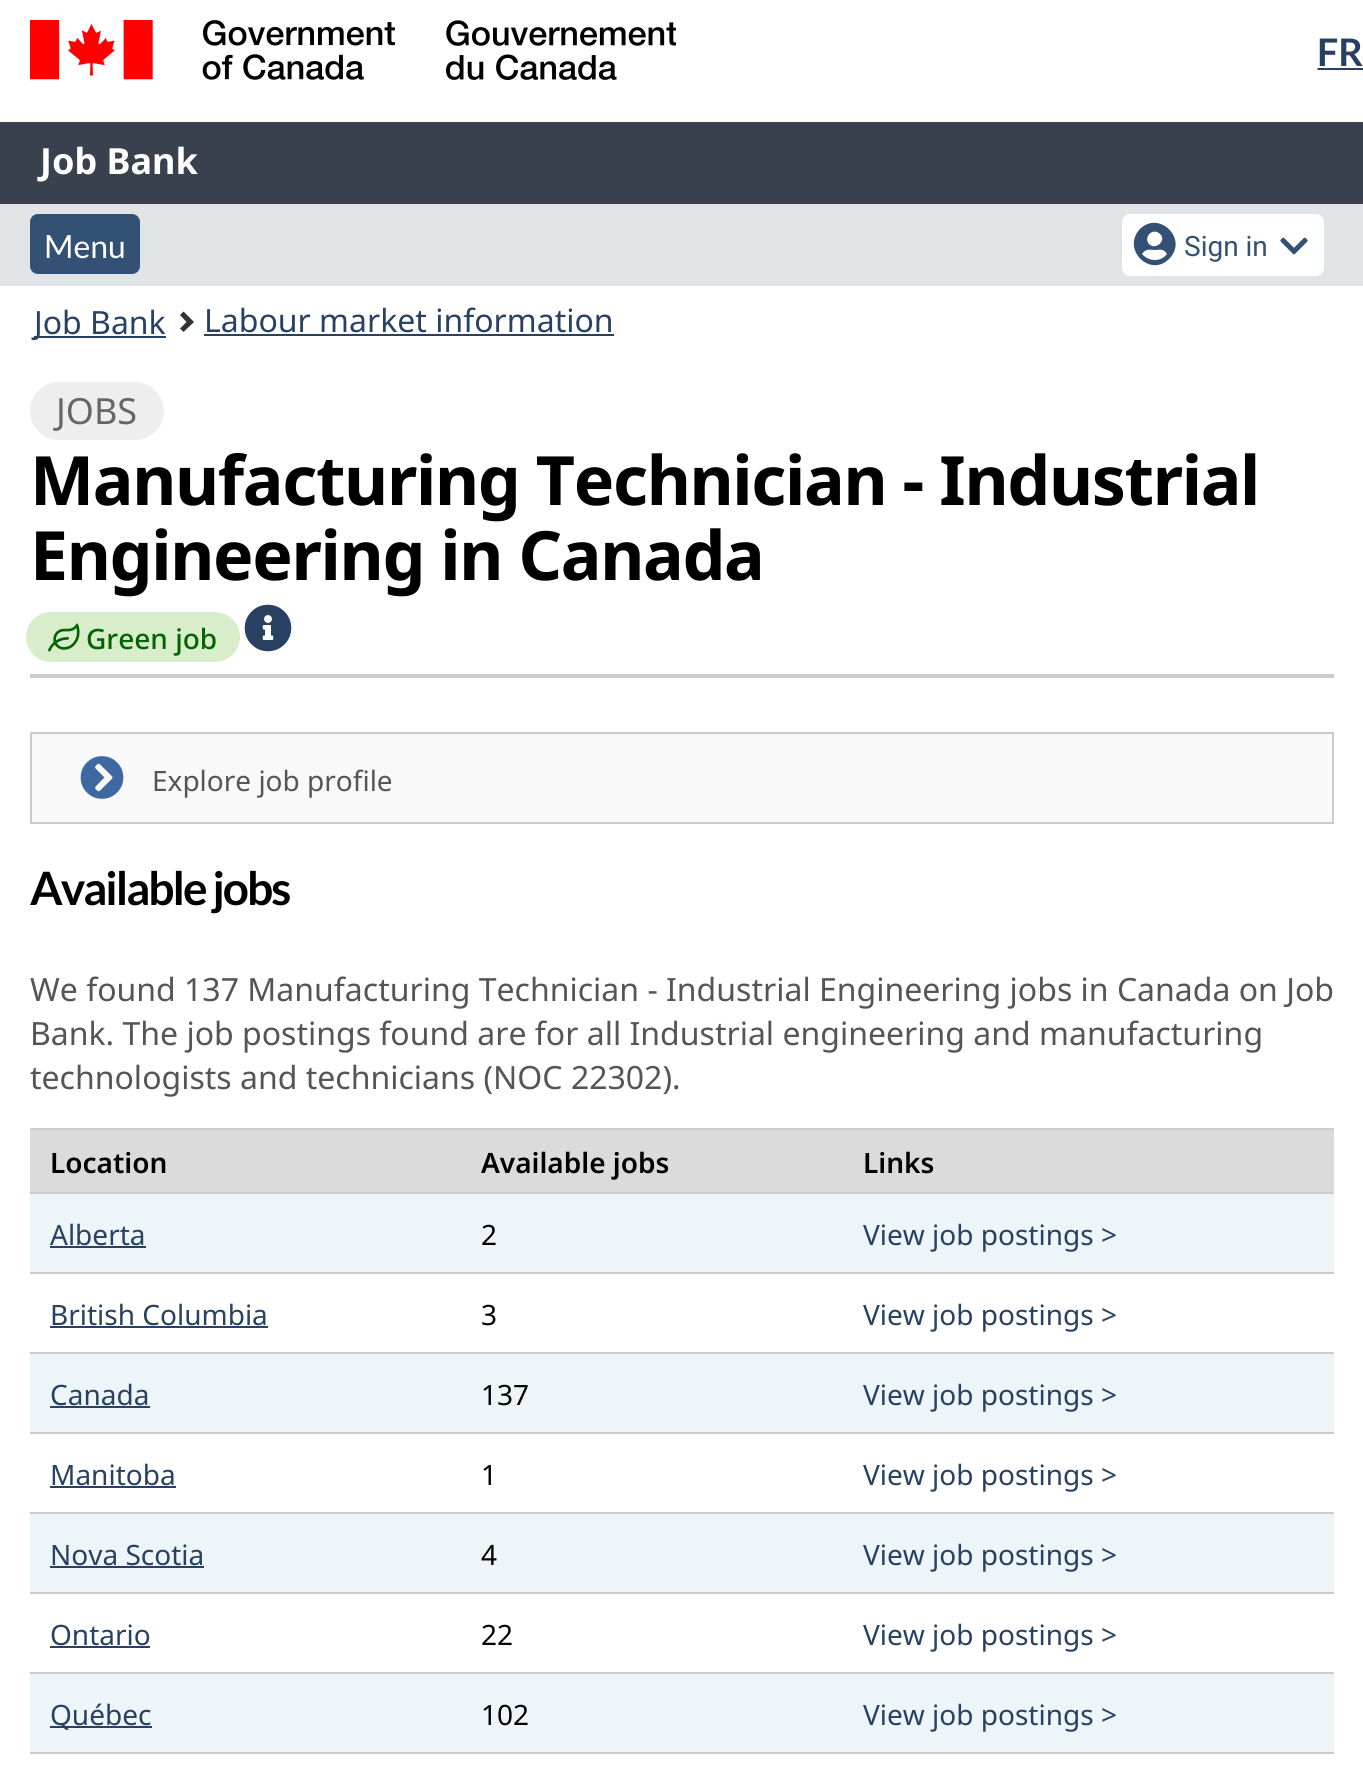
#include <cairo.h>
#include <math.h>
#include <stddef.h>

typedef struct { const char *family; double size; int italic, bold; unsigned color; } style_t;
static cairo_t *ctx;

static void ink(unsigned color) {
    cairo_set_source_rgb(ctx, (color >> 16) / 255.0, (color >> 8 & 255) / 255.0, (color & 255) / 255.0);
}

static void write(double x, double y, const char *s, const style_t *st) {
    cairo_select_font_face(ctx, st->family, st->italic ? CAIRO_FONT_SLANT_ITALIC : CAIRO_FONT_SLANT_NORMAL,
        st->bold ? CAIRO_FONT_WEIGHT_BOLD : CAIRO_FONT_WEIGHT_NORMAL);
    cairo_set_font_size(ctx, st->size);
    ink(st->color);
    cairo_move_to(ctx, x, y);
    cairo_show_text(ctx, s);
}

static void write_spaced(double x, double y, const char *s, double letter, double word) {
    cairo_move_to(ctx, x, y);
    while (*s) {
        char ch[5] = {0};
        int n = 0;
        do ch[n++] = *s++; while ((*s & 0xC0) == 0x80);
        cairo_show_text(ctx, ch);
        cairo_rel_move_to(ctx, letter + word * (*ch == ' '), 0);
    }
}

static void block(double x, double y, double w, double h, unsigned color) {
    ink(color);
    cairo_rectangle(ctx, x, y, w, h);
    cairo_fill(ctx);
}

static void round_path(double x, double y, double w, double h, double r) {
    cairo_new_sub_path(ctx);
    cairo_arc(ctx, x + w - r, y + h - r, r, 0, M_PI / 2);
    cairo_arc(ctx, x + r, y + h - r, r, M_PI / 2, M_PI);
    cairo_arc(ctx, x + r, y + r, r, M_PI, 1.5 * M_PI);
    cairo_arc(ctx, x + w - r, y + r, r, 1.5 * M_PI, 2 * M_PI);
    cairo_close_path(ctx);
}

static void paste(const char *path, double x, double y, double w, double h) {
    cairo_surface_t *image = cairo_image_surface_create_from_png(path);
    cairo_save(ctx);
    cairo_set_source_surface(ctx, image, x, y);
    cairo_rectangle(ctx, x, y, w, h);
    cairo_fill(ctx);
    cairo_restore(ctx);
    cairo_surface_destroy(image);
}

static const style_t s1 = {"Lato", 38, 0, 1, 0x284162};
static const style_t s2 = {"Noto Sans", 36, 0, 1, 0xffffff};
static const style_t s3 = {"Lato", 32, 0, 0, 0xffffff};
static const style_t s4 = {"Roboto", 28, 0, 0, 0x335075};
static const style_t s5 = {"Noto Sans", 32, 0, 0, 0x284162};
static const style_t s6 = {"Noto Sans", 36, 0, 0, 0x666666};
static const style_t s7 = {"Noto Sans Medium", 28, 0, 0, 0x006400};
static const style_t s8 = {"Noto Sans", 28, 0, 0, 0x555555};
static const style_t s9 = {"Noto Sans", 32, 0, 0, 0x555555};
static const style_t s10 = {"Noto Sans SemiBold", 28, 0, 0, 0x000000};
static const style_t s11 = {"Noto Sans", 28, 0, 0, 0x284162};
static const style_t s12 = {"Noto Sans", 28, 0, 0, 0x000000};

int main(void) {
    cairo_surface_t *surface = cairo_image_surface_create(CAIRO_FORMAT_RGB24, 1363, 1789);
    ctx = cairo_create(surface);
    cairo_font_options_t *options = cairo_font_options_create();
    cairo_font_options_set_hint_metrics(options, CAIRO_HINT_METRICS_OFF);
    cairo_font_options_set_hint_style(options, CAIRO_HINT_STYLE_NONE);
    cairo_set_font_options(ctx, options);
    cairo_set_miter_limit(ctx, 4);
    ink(0xffffff);
    cairo_paint(ctx);
    paste("pic1.png", 30, 20, 646, 60);
    write(1317, 66, "FR", &s1);
    cairo_new_path(ctx);
    cairo_move_to(ctx, 1317.5, 69);
    cairo_line_to(ctx, 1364, 69);
    cairo_set_dash(ctx, (double[]){2, 2}, 2, 0);
    cairo_stroke(ctx);
    block(1318, 68, 45, 2, 0x284162);
    block(0, 122, 1363, 82, 0x38414d);
    write(40, 174, "Job Bank", &s2);
    block(0, 204, 1363, 82, 0xe1e4e7);
    ink(0x335075);
    round_path(30, 214, 110, 60, 8);
    cairo_fill(ctx);
    write(44, 258, "Menu", &s3);
    round_path(1122, 214, 202, 62, 8);
    cairo_fill(ctx);
    ink(0x335075);
    cairo_new_path(ctx);
    cairo_move_to(ctx, 1140, 229);
    cairo_curve_to(ctx, 1159, 210, 1189, 239, 1169, 259);
    cairo_curve_to(ctx, 1150, 278, 1121, 249, 1140, 229);
    cairo_close_path(ctx);
    cairo_move_to(ctx, 1160, 234);
    cairo_curve_to(ctx, 1153, 227, 1143, 237, 1149, 244);
    cairo_curve_to(ctx, 1156, 251, 1167, 240, 1160, 234);
    cairo_close_path(ctx);
    cairo_move_to(ctx, 1142, 254);
    cairo_curve_to(ctx, 1149, 262, 1161, 262, 1167, 254);
    cairo_curve_to(ctx, 1163, 248, 1160, 250, 1155, 250);
    cairo_curve_to(ctx, 1150, 250, 1146, 248, 1142, 254);
    cairo_close_path(ctx);
    cairo_fill(ctx);
    write(1184, 256, "Sign in", &s4);
    paste("pic2.png", 1280, 237, 28, 18);
    block(34, 336, 132, 2, 0x284162);
    write(34, 334, "Job Bank", &s5);
    ink(0x333333);
    cairo_new_path(ctx);
    cairo_move_to(ctx, 194, 322);
    cairo_line_to(ctx, 183.5, 332);
    cairo_line_to(ctx, 180, 328.5);
    cairo_line_to(ctx, 186.5, 322);
    cairo_line_to(ctx, 180, 315);
    cairo_line_to(ctx, 183.5, 311.5);
    cairo_close_path(ctx);
    cairo_fill(ctx);
    write(204, 332, "Labour market information", &s5);
    block(204, 334, 410, 2, 0x284162);
    block(30, 674, 1304, 4, 0xcccccc);
    ink(0xeeeeee);
    round_path(30, 382, 134, 58, 29);
    cairo_fill(ctx);
    write(56, 424, "JOBS", &s6);
    cairo_select_font_face(ctx, "Noto Sans", CAIRO_FONT_SLANT_NORMAL, CAIRO_FONT_WEIGHT_BOLD);
    cairo_set_font_size(ctx, 68);
    ink(0x000000);
    write_spaced(30, 505, "Manufacturing Technician - Industrial", -1.35, 0);
    write_spaced(30, 580, "Engineering in Canada", -1.35, 0);
    ink(0xd8eeca);
    round_path(26, 612, 214, 50, 25);
    cairo_fill(ctx);
    paste("pic3.png", 48, 623, 32, 29);
    write(86, 649, "Green job", &s7);
    paste("pic4.png", 244, 604, 48, 48);
    ink(0xf9f9f9);
    cairo_rectangle(ctx, 31, 733, 1302, 90);
    cairo_fill_preserve(ctx);
    ink(0xcccccc);
    cairo_set_dash(ctx, NULL, 0, 0);
    cairo_stroke(ctx);
    paste("pic5.png", 80, 756, 44, 43);
    write(152, 791, "Explore job profile", &s8);
    cairo_select_font_face(ctx, "Lato", CAIRO_FONT_SLANT_NORMAL, CAIRO_FONT_WEIGHT_BOLD);
    cairo_set_font_size(ctx, 46);
    ink(0x000000);
    write_spaced(30, 905, "Available jobs", -2, 0);
    write(30, 1001, "We found 137 Manufacturing Technician - Industrial Engineering jobs in Canada on Job", &s9);
    write(30, 1045, "Bank. The job postings found are for all Industrial engineering and manufacturing", &s9);
    write(30, 1089, "technologists and technicians (NOC 22302).", &s9);
    block(30, 1130, 1304, 62, 0xdbdbdb);
    block(30, 1128, 1304, 2, 0xcccccc);
    write(50, 1173, "Location", &s10);
    write(481, 1173, "Available jobs", &s10);
    write(863, 1173, "Links", &s10);
    block(30, 1194, 1304, 78, 0xedf5f8);
    block(30, 1192, 1304, 2, 0xcccccc);
    write(50, 1245, "Alberta", &s11);
    block(50, 1246, 96, 2, 0x284162);
    write(481, 1245, "2", &s12);
    write(863, 1245, "View job postings >", &s11);
    block(30, 1272, 1304, 2, 0xcccccc);
    write(50, 1325, "British Columbia", &s11);
    block(50, 1326, 218, 2, 0x284162);
    write(481, 1325, "3", &s12);
    write(863, 1325, "View job postings >", &s11);
    block(30, 1354, 1304, 78, 0xedf5f8);
    block(30, 1352, 1304, 2, 0xcccccc);
    write(50, 1405, "Canada", &s11);
    block(50, 1406, 100, 2, 0x284162);
    write(481, 1405, "137", &s12);
    write(863, 1405, "View job postings >", &s11);
    block(30, 1432, 1304, 2, 0xcccccc);
    write(50, 1485, "Manitoba", &s11);
    block(50, 1486, 126, 2, 0x284162);
    write(481, 1485, "1", &s12);
    write(863, 1485, "View job postings >", &s11);
    block(30, 1514, 1304, 78, 0xedf5f8);
    block(30, 1512, 1304, 2, 0xcccccc);
    write(50, 1565, "Nova Scotia", &s11);
    block(50, 1566, 154, 2, 0x284162);
    write(481, 1565, "4", &s12);
    write(863, 1565, "View job postings >", &s11);
    block(30, 1592, 1304, 2, 0xcccccc);
    write(50, 1645, "Ontario", &s11);
    block(50, 1646, 100, 2, 0x284162);
    write(481, 1645, "22", &s12);
    write(863, 1645, "View job postings >", &s11);
    block(30, 1674, 1304, 78, 0xedf5f8);
    block(30, 1672, 1304, 2, 0xcccccc);
    block(50, 1726, 102, 2, 0x284162);
    write(50, 1725, "Québec", &s11);
    write(481, 1725, "102", &s12);
    write(863, 1725, "View job postings >", &s11);
    block(30, 1752, 1304, 2, 0xcccccc);
    cairo_surface_write_to_png(surface, "screenshot.png");
    cairo_font_options_destroy(options);
    cairo_destroy(ctx);
    cairo_surface_destroy(surface);
    return 0;
}
